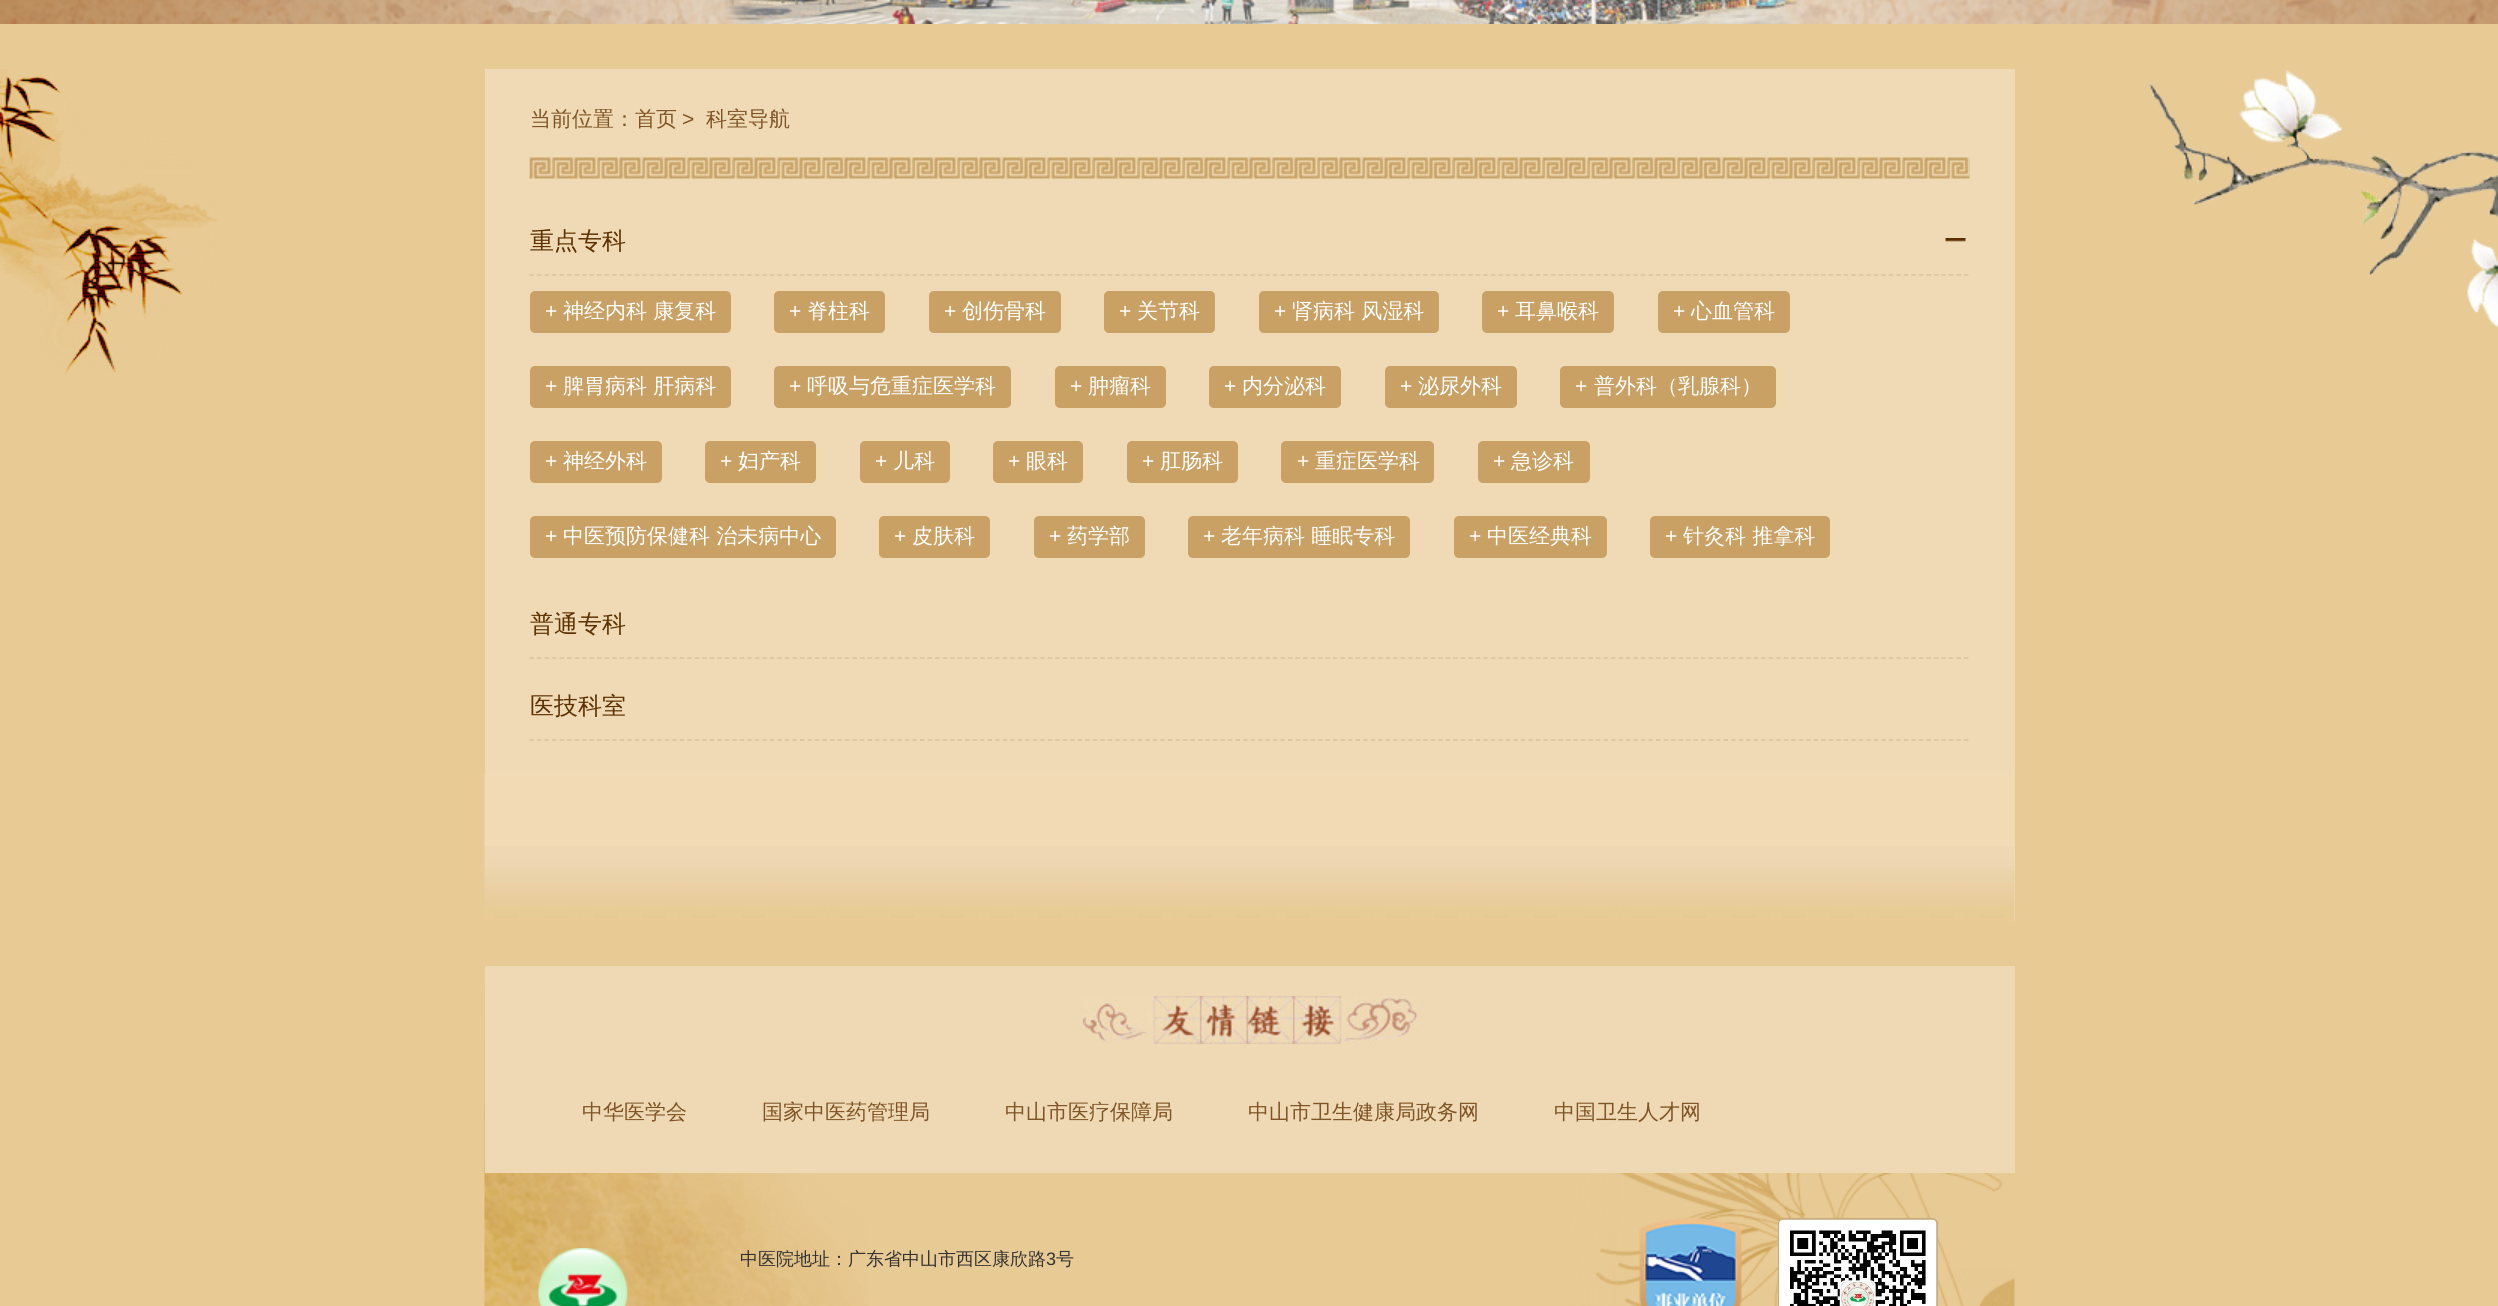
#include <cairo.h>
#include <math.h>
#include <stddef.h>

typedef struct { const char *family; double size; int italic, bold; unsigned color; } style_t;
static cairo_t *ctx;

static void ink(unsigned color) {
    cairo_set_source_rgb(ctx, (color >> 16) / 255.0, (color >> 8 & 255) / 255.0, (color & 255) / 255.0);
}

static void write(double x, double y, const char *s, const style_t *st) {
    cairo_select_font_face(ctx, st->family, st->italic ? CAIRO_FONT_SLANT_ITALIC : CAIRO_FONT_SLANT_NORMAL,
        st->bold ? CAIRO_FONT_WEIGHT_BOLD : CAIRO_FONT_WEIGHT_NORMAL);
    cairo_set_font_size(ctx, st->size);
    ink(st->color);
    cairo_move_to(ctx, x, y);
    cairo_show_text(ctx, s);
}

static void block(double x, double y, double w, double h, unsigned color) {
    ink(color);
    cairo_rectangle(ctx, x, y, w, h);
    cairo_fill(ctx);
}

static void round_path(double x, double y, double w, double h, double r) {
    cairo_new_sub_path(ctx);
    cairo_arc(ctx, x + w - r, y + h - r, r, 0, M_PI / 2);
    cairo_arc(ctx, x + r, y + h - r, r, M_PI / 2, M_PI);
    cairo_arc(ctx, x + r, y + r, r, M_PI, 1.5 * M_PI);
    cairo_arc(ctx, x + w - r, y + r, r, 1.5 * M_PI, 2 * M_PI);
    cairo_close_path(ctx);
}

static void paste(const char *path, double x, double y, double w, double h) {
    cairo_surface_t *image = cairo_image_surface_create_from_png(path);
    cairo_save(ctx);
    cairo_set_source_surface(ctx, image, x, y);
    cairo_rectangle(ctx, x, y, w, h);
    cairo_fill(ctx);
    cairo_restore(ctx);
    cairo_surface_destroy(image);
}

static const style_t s1 = {"WenQuanYi Zen Hei Medium", 21, 0, 0, 0x7f5426};
static const style_t s2 = {"Liberation Sans", 21, 0, 0, 0x7f5426};
static const style_t s3 = {"WenQuanYi Zen Hei Medium", 24, 0, 0, 0x5d3101};
static const style_t s4 = {"Liberation Sans", 21, 0, 0, 0xffffff};
static const style_t s5 = {"WenQuanYi Zen Hei Medium", 21, 0, 0, 0xffffff};
static const style_t s6 = {"WenQuanYi Zen Hei Medium", 18, 0, 0, 0x333333};
static const style_t s7 = {"Liberation Sans", 18, 0, 0, 0x333333};

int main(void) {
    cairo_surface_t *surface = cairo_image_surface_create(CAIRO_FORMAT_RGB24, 2498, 1306);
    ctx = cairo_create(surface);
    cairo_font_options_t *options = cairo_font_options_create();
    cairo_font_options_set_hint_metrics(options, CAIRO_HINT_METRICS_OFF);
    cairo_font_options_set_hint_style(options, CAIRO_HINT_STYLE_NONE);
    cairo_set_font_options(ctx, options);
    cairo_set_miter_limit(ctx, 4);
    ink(0xe8ca94);
    cairo_paint(ctx);
    paste("pic1.png", 0, 0, 2498, 24);
    paste("pic2.png", 0, 69, 218, 305);
    paste("pic3.png", 2149, 70, 349, 258);
    block(485, 69, 1530, 852, 0xefdab5);
    paste("pic4.png", 484, 774, 1531, 147);
    paste("pic5.png", 529, 157, 1441, 22);
    write(530, 126, "当前位置：首页", &s1);
    write(682, 126, ">", &s2);
    write(706, 126, "科室导航", &s1);
    cairo_new_path(ctx);
    cairo_move_to(ctx, 529.5, 275);
    cairo_line_to(ctx, 1969.5, 275);
    ink(0xdbc29b);
    cairo_set_line_width(ctx, 1.5);
    cairo_set_dash(ctx, (double[]){4.5, 3.01}, 2, 0);
    cairo_stroke(ctx);
    write(530, 249, "重点专科", &s3);
    paste("pic6.png", 1945, 238, 21, 4);
    ink(0xc9a164);
    round_path(530, 291, 201, 42, 5);
    cairo_fill(ctx);
    write(545, 318, "+", &s4);
    write(563, 318, "神经内科 康复科", &s5);
    ink(0xc9a164);
    round_path(774, 291, 111, 42, 5);
    cairo_fill(ctx);
    write(789, 318, "+", &s4);
    write(807, 318, "脊柱科", &s5);
    ink(0xc9a164);
    round_path(929, 291, 132, 42, 5);
    cairo_fill(ctx);
    write(944, 318, "+", &s4);
    write(962, 318, "创伤骨科", &s5);
    ink(0xc9a164);
    round_path(1104, 291, 111, 42, 5);
    cairo_fill(ctx);
    write(1119, 318, "+", &s4);
    write(1137, 318, "关节科", &s5);
    ink(0xc9a164);
    round_path(1259, 291, 180, 42, 5);
    cairo_fill(ctx);
    write(1274, 318, "+", &s4);
    write(1292, 318, "肾病科 风湿科", &s5);
    ink(0xc9a164);
    round_path(1482, 291, 132, 42, 5);
    cairo_fill(ctx);
    write(1497, 318, "+", &s4);
    write(1515, 318, "耳鼻喉科", &s5);
    ink(0xc9a164);
    round_path(1658, 291, 132, 42, 5);
    cairo_fill(ctx);
    write(1673, 318, "+", &s4);
    write(1691, 318, "心血管科", &s5);
    ink(0xc9a164);
    round_path(530, 366, 201, 42, 5);
    cairo_fill(ctx);
    write(545, 393, "+", &s4);
    write(563, 393, "脾胃病科 肝病科", &s5);
    ink(0xc9a164);
    round_path(774, 366, 237, 42, 5);
    cairo_fill(ctx);
    write(789, 393, "+", &s4);
    write(807, 393, "呼吸与危重症医学科", &s5);
    ink(0xc9a164);
    round_path(1055, 366, 111, 42, 5);
    cairo_fill(ctx);
    write(1070, 393, "+", &s4);
    write(1088, 393, "肿瘤科", &s5);
    ink(0xc9a164);
    round_path(1209, 366, 132, 42, 5);
    cairo_fill(ctx);
    write(1224, 393, "+", &s4);
    write(1242, 393, "内分泌科", &s5);
    ink(0xc9a164);
    round_path(1385, 366, 132, 42, 5);
    cairo_fill(ctx);
    write(1400, 393, "+", &s4);
    write(1418, 393, "泌尿外科", &s5);
    ink(0xc9a164);
    round_path(1560, 366, 216, 42, 5);
    cairo_fill(ctx);
    write(1575, 393, "+", &s4);
    write(1594, 393, "普外科（乳腺科）", &s5);
    ink(0xc9a164);
    round_path(530, 441, 132, 42, 5);
    cairo_fill(ctx);
    write(545, 468, "+", &s4);
    write(563, 468, "神经外科", &s5);
    ink(0xc9a164);
    round_path(705, 441, 111, 42, 5);
    cairo_fill(ctx);
    write(720, 468, "+", &s4);
    write(738, 468, "妇产科", &s5);
    ink(0xc9a164);
    round_path(860, 441, 90, 42, 5);
    cairo_fill(ctx);
    write(875, 468, "+", &s4);
    write(893, 468, "儿科", &s5);
    ink(0xc9a164);
    round_path(993, 441, 90, 42, 5);
    cairo_fill(ctx);
    write(1008, 468, "+", &s4);
    write(1026, 468, "眼科", &s5);
    ink(0xc9a164);
    round_path(1127, 441, 111, 42, 5);
    cairo_fill(ctx);
    write(1142, 468, "+", &s4);
    write(1160, 468, "肛肠科", &s5);
    ink(0xc9a164);
    round_path(1281, 441, 153, 42, 5);
    cairo_fill(ctx);
    write(1297, 468, "+", &s4);
    write(1315, 468, "重症医学科", &s5);
    ink(0xc9a164);
    round_path(1478, 441, 112, 42, 5);
    cairo_fill(ctx);
    write(1493, 468, "+", &s4);
    write(1511, 468, "急诊科", &s5);
    ink(0xc9a164);
    round_path(530, 516, 306, 42, 5);
    cairo_fill(ctx);
    write(545, 543, "+", &s4);
    write(563, 543, "中医预防保健科 治未病中心", &s5);
    ink(0xc9a164);
    round_path(879, 516, 111, 42, 5);
    cairo_fill(ctx);
    write(894, 543, "+", &s4);
    write(912, 543, "皮肤科", &s5);
    ink(0xc9a164);
    round_path(1034, 516, 111, 42, 5);
    cairo_fill(ctx);
    write(1049, 543, "+", &s4);
    write(1067, 543, "药学部", &s5);
    ink(0xc9a164);
    round_path(1188, 516, 222, 42, 5);
    cairo_fill(ctx);
    write(1203, 543, "+", &s4);
    write(1221, 543, "老年病科 睡眠专科", &s5);
    ink(0xc9a164);
    round_path(1454, 516, 153, 42, 5);
    cairo_fill(ctx);
    write(1469, 543, "+", &s4);
    write(1487, 543, "中医经典科", &s5);
    ink(0xc9a164);
    round_path(1650, 516, 180, 42, 5);
    cairo_fill(ctx);
    write(1665, 543, "+", &s4);
    write(1683, 543, "针灸科 推拿科", &s5);
    cairo_new_path(ctx);
    cairo_move_to(ctx, 529.5, 658);
    cairo_line_to(ctx, 1969.5, 658);
    ink(0xdbc29b);
    cairo_stroke(ctx);
    write(530, 632, "普通专科", &s3);
    cairo_new_path(ctx);
    cairo_move_to(ctx, 529.5, 740);
    cairo_line_to(ctx, 1969.5, 740);
    ink(0xdbc29b);
    cairo_stroke(ctx);
    write(530, 714, "医技科室", &s3);
    paste("pic7.png", 484, 989, 385, 317);
    paste("pic8.png", 1567, 1173, 448, 133);
    block(485, 966, 1530, 207, 0xeed9b4);
    paste("pic9.png", 1083, 996, 335, 48);
    write(582, 1119, "中华医学会", &s1);
    write(762, 1119, "国家中医药管理局", &s1);
    write(1005, 1119, "中山市医疗保障局", &s1);
    write(1248, 1119, "中山市卫生健康局政务网", &s1);
    write(1554, 1119, "中国卫生人才网", &s1);
    paste("pic10.png", 538, 1248, 90, 58);
    write(740, 1265, "中医院地址：广东省中山市西区康欣路", &s6);
    write(1046, 1265, "3", &s7);
    write(1056, 1265, "号", &s6);
    paste("pic11.png", 1639, 1218, 103, 88);
    round_path(1779, 1219, 158, 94, 5);
    ink(0xc5aa7d);
    cairo_set_line_width(ctx, 2);
    cairo_set_dash(ctx, NULL, 0, 0);
    cairo_stroke(ctx);
    paste("pic12.png", 1779, 1219, 158, 87);
    cairo_surface_write_to_png(surface, "screenshot.png");
    cairo_font_options_destroy(options);
    cairo_destroy(ctx);
    cairo_surface_destroy(surface);
    return 0;
}
